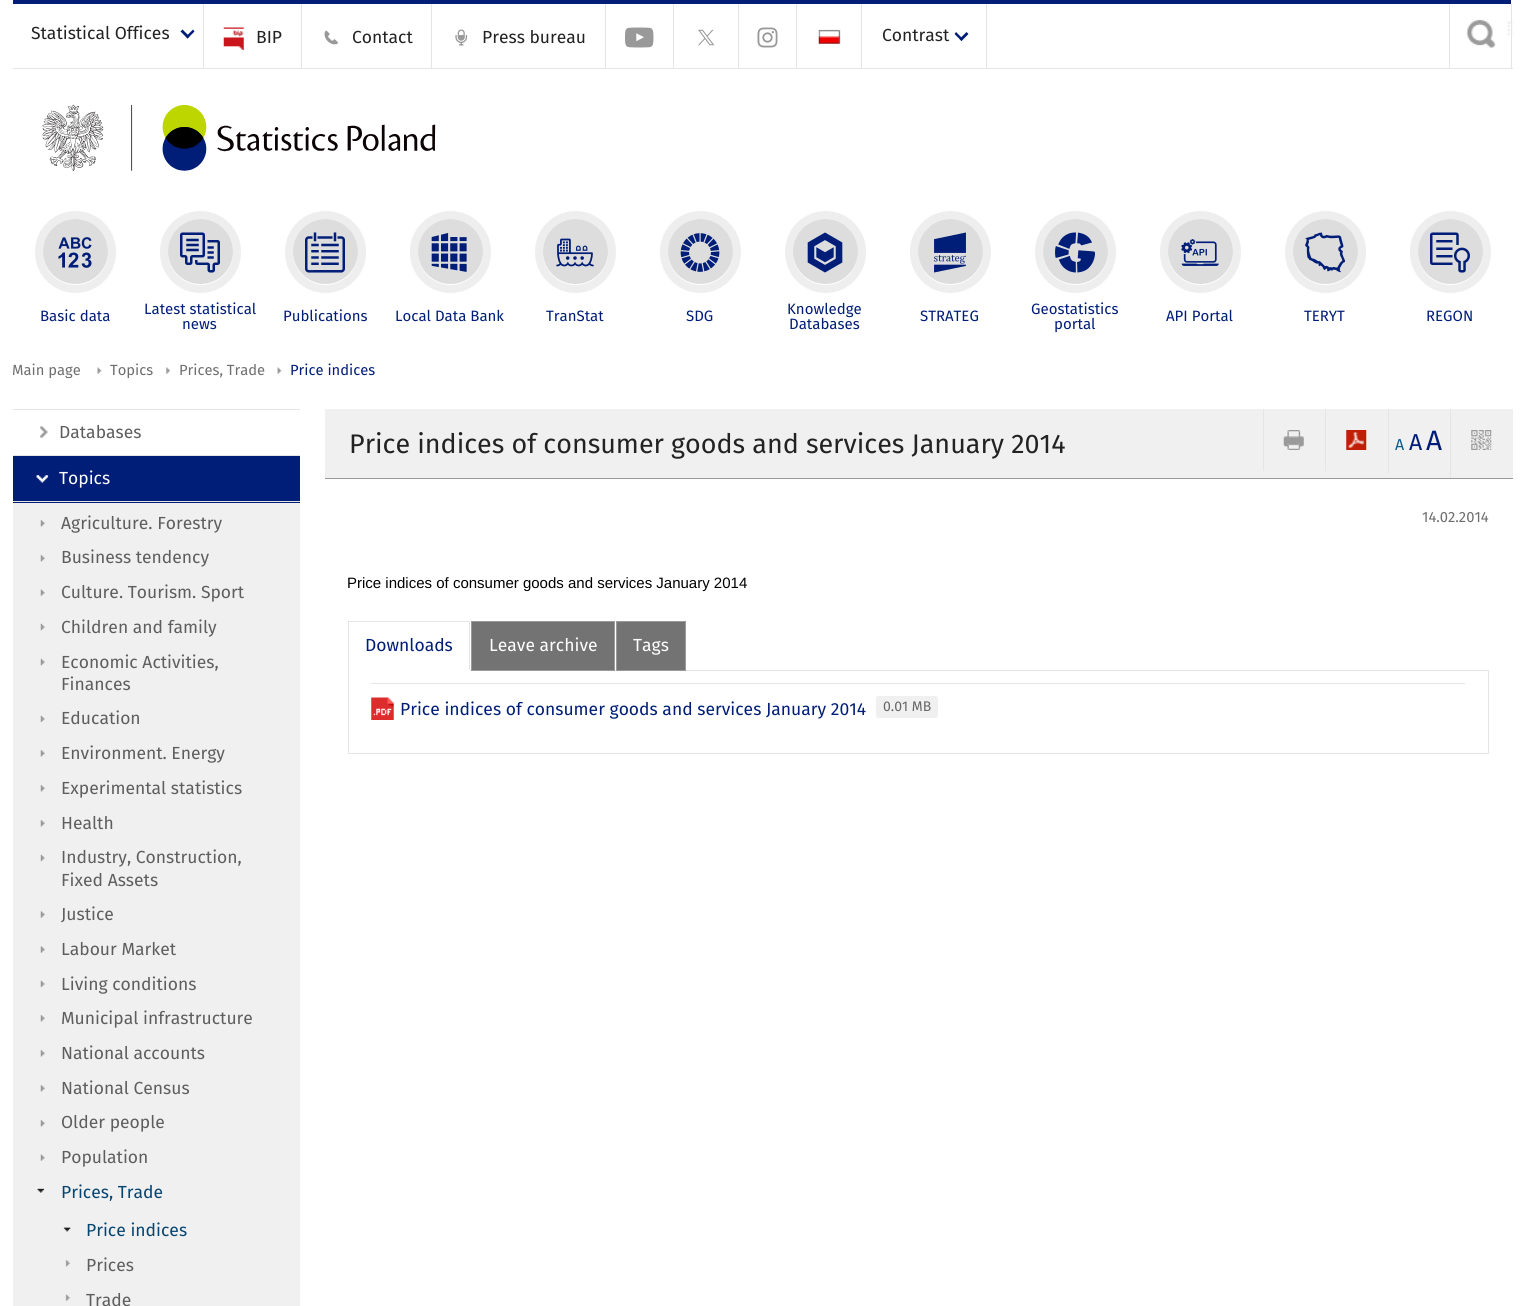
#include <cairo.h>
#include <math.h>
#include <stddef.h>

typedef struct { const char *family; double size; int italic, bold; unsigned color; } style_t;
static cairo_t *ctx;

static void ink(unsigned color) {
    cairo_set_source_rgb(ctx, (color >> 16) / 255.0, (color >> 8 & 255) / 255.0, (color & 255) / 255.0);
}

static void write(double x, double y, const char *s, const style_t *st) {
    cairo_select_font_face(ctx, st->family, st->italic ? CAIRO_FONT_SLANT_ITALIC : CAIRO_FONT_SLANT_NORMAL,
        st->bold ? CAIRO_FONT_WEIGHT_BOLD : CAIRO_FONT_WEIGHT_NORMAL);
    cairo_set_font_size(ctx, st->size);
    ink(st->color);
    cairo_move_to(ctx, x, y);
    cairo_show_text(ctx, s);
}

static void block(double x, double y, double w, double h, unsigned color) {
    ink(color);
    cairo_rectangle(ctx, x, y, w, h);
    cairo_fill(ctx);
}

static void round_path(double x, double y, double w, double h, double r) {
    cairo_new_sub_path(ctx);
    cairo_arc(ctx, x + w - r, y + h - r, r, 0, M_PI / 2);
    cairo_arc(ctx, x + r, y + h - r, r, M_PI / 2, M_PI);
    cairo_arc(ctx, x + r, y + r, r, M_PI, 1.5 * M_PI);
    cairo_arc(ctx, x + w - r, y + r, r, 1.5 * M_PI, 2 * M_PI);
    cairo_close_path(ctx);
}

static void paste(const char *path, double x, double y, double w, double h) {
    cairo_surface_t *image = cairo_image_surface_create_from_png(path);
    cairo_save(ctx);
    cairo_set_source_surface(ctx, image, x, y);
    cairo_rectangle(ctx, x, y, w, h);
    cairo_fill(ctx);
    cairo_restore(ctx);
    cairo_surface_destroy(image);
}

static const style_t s1 = {"Fira Sans", 17.5, 0, 0, 0x222222};
static const style_t s2 = {"Fira Sans", 15, 0, 0, 0x001d77};
static const style_t s3 = {"Fira Sans", 14.75, 0, 0, 0x6e6e6e};
static const style_t s4 = {"Fira Sans", 14.75, 0, 0, 0x001d77};
static const style_t s5 = {"Fira Sans", 17.5, 0, 0, 0x5e5e5e};
static const style_t s6 = {"Fira Sans", 17.5, 0, 0, 0xffffff};
static const style_t s7 = {"Fira Sans", 17.5, 0, 0, 0x064571};
static const style_t s8 = {"Fira Sans", 26.9, 0, 0, 0x222222};
static const style_t s9 = {"Fira Sans", 16, 0, 0, 0x0f5c8d};
static const style_t s10 = {"Fira Sans", 23, 0, 0, 0x001d77};
static const style_t s11 = {"Fira Sans", 28, 0, 0, 0x001d77};
static const style_t s12 = {"Liberation Sans", 15, 0, 0, 0x000000};
static const style_t s13 = {"Fira Sans", 17.5, 0, 0, 0x001d77};
static const style_t s14 = {"Fira Sans", 14, 0, 0, 0x666666};

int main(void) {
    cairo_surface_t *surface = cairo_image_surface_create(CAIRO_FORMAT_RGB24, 1523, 1306);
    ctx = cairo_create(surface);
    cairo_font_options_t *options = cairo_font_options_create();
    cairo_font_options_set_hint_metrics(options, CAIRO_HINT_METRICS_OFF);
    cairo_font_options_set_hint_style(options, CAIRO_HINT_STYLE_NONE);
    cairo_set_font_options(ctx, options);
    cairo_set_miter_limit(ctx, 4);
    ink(0xffffff);
    cairo_paint(ctx);
    block(13, 0, 1498, 4, 0x001d77);
    block(13, 68, 1500, 1, 0xe5e5e5);
    block(203, 4, 1, 64, 0xe5e5e5);
    write(31, 39, "Statistical Offices", &s1);
    ink(0x001d77);
    cairo_new_path(ctx);
    cairo_move_to(ctx, 193, 29.5);
    cairo_line_to(ctx, 194.5, 31.5);
    cairo_line_to(ctx, 187.5, 38.5);
    cairo_line_to(ctx, 186, 36.5);
    cairo_close_path(ctx);
    cairo_fill(ctx);
    cairo_new_path(ctx);
    cairo_move_to(ctx, 182.5, 29.5);
    cairo_line_to(ctx, 189.5, 36.5);
    cairo_line_to(ctx, 187.5, 38.5);
    cairo_line_to(ctx, 180.5, 31.5);
    cairo_close_path(ctx);
    cairo_fill(ctx);
    block(301, 4, 1, 64, 0xe5e5e5);
    paste("pic1.png", 223, 27, 21, 23);
    write(256, 43, "BIP", &s1);
    block(431, 4, 1, 64, 0xe5e5e5);
    paste("pic2.png", 324, 30, 14, 15);
    write(352, 43, "Contact", &s1);
    block(605, 4, 1, 64, 0xe5e5e5);
    paste("pic3.png", 455, 29, 13, 17);
    write(482, 43, "Press bureau", &s1);
    block(673, 4, 1, 64, 0xe5e5e5);
    paste("pic4.png", 625, 27, 29, 21);
    block(738, 4, 1, 64, 0xe5e5e5);
    paste("pic5.png", 698, 29, 17, 17);
    block(796, 4, 1, 64, 0xe5e5e5);
    paste("pic6.png", 757, 27, 21, 21);
    block(861, 4, 1, 64, 0xe5e5e5);
    paste("pic7.png", 818, 29, 23, 15);
    block(986, 4, 1, 64, 0xe5e5e5);
    write(882, 41, "Contrast", &s1);
    ink(0x001d77);
    cairo_new_path(ctx);
    cairo_move_to(ctx, 966.5, 32);
    cairo_line_to(ctx, 968.5, 34);
    cairo_line_to(ctx, 961.5, 41);
    cairo_line_to(ctx, 959.5, 39);
    cairo_close_path(ctx);
    cairo_fill(ctx);
    cairo_new_path(ctx);
    cairo_move_to(ctx, 956, 32);
    cairo_line_to(ctx, 963, 39);
    cairo_line_to(ctx, 961.5, 41);
    cairo_line_to(ctx, 954.5, 34);
    cairo_close_path(ctx);
    cairo_fill(ctx);
    paste("pic8.png", 1466, 19, 47, 29);
    block(1511, 4, 1, 64, 0xe5e5e5);
    block(1449, 4, 1, 64, 0xe5e5e5);
    paste("pic9.png", 42, 104, 394, 68);
    round_path(39, 215, 73, 74, 36.5);
    ink(0xeeeeee);
    cairo_set_line_width(ctx, 8);
    cairo_stroke(ctx);
    ink(0xdddddd);
    cairo_arc(ctx, 75.5, 251.5, 32.5, 0, 2 * M_PI);
    cairo_fill(ctx);
    paste("pic10.png", 58, 237, 34, 31);
    write(40, 321, "Basic data", &s2);
    round_path(164, 215, 73, 74, 36.5);
    ink(0xeeeeee);
    cairo_stroke(ctx);
    ink(0xdddddd);
    cairo_arc(ctx, 200.5, 251.5, 32.5, 0, 2 * M_PI);
    cairo_fill(ctx);
    paste("pic11.png", 180, 232, 40, 41);
    write(144, 314, "Latest statistical", &s2);
    write(182, 329, "news", &s2);
    round_path(289, 215, 73, 74, 36.5);
    ink(0xeeeeee);
    cairo_stroke(ctx);
    ink(0xdddddd);
    cairo_arc(ctx, 325.5, 251.5, 32.5, 0, 2 * M_PI);
    cairo_fill(ctx);
    paste("pic12.png", 305, 232, 40, 41);
    write(283, 321, "Publications", &s2);
    round_path(414, 215, 73, 74, 36.5);
    ink(0xeeeeee);
    cairo_stroke(ctx);
    ink(0xdddddd);
    cairo_arc(ctx, 450.5, 251.5, 32.5, 0, 2 * M_PI);
    cairo_fill(ctx);
    paste("pic13.png", 431, 233, 36, 39);
    write(395, 321, "Local Data Bank", &s2);
    round_path(539, 215, 73, 74, 36.5);
    ink(0xeeeeee);
    cairo_stroke(ctx);
    ink(0xdddddd);
    cairo_arc(ctx, 575.5, 251.5, 32.5, 0, 2 * M_PI);
    cairo_fill(ctx);
    paste("pic14.png", 556, 238, 38, 29);
    write(546, 321, "TranStat", &s2);
    round_path(664, 215, 73, 74, 36.5);
    ink(0xeeeeee);
    cairo_stroke(ctx);
    ink(0xdddddd);
    cairo_arc(ctx, 700.5, 251.5, 32.5, 0, 2 * M_PI);
    cairo_fill(ctx);
    paste("pic15.png", 680, 233, 40, 39);
    write(686, 321, "SDG", &s2);
    round_path(789, 215, 73, 74, 36.5);
    ink(0xeeeeee);
    cairo_stroke(ctx);
    ink(0xdddddd);
    cairo_arc(ctx, 825.5, 251.5, 32.5, 0, 2 * M_PI);
    cairo_fill(ctx);
    paste("pic16.png", 807, 232, 36, 41);
    write(787, 314, "Knowledge", &s2);
    write(789, 329, "Databases", &s2);
    round_path(914, 215, 73, 74, 36.5);
    ink(0xeeeeee);
    cairo_stroke(ctx);
    ink(0xdddddd);
    cairo_arc(ctx, 950.5, 251.5, 32.5, 0, 2 * M_PI);
    cairo_fill(ctx);
    paste("pic17.png", 934, 232, 32, 41);
    write(920, 321, "STRATEG", &s2);
    round_path(1039, 215, 73, 74, 36.5);
    ink(0xeeeeee);
    cairo_stroke(ctx);
    ink(0xdddddd);
    cairo_arc(ctx, 1075.5, 251.5, 32.5, 0, 2 * M_PI);
    cairo_fill(ctx);
    paste("pic18.png", 1055, 232, 40, 41);
    write(1031, 314, "Geostatistics", &s2);
    write(1054, 329, "portal", &s2);
    round_path(1164, 215, 73, 74, 36.5);
    ink(0xeeeeee);
    cairo_stroke(ctx);
    ink(0xdddddd);
    cairo_arc(ctx, 1200.5, 251.5, 32.5, 0, 2 * M_PI);
    cairo_fill(ctx);
    paste("pic19.png", 1181, 239, 38, 27);
    write(1166, 321, "API Portal", &s2);
    round_path(1289, 215, 73, 74, 36.5);
    ink(0xeeeeee);
    cairo_stroke(ctx);
    ink(0xdddddd);
    cairo_arc(ctx, 1325.5, 251.5, 32.5, 0, 2 * M_PI);
    cairo_fill(ctx);
    paste("pic20.png", 1305, 232, 41, 41);
    write(1304, 321, "TERYT", &s2);
    round_path(1414, 215, 73, 74, 36.5);
    ink(0xeeeeee);
    cairo_stroke(ctx);
    ink(0xdddddd);
    cairo_arc(ctx, 1450.5, 251.5, 32.5, 0, 2 * M_PI);
    cairo_fill(ctx);
    paste("pic21.png", 1430, 232, 40, 41);
    write(1426, 321, "REGON", &s2);
    write(12, 375, "Main page", &s3);
    paste("pic22.png", 97, 367, 5, 7);
    write(110, 375, "Topics", &s3);
    paste("pic23.png", 166, 367, 5, 7);
    write(179, 375, "Prices, Trade", &s3);
    paste("pic24.png", 277, 367, 5, 7);
    write(290, 375, "Price indices", &s4);
    paste("pic25.png", 40, 426, 8, 12);
    block(13, 409, 287, 1, 0xe5e5e5);
    write(59, 438, "Databases", &s5);
    block(13, 456, 287, 47, 0x001d77);
    paste("pic26.png", 36, 475, 13, 8);
    block(13, 455, 287, 1, 0xe5e5e5);
    block(13, 501, 287, 1, 0xe5e5e5);
    write(59, 484, "Topics", &s6);
    block(13, 503, 287, 803, 0xf0f0f0);
    paste("pic27.png", 40, 520, 5, 7);
    write(61, 529, "Agriculture. Forestry", &s5);
    paste("pic27.png", 40, 555, 5, 7);
    write(61, 563, "Business tendency", &s5);
    paste("pic28.png", 40, 589, 5, 7);
    write(61, 598, "Culture. Tourism. Sport", &s5);
    paste("pic29.png", 40, 623, 5, 8);
    write(61, 633, "Children and family", &s5);
    paste("pic30.png", 40, 658, 5, 8);
    write(61, 668, "Economic Activities,", &s5);
    write(61, 690, "Finances", &s5);
    paste("pic31.png", 40, 715, 5, 8);
    write(61, 724, "Education", &s5);
    paste("pic27.png", 40, 750, 5, 7);
    write(61, 759, "Environment. Energy", &s5);
    paste("pic27.png", 40, 785, 5, 7);
    write(61, 794, "Experimental statistics", &s5);
    paste("pic27.png", 40, 820, 5, 7);
    write(61, 829, "Health", &s5);
    paste("pic32.png", 40, 854, 5, 8);
    write(61, 863, "Industry, Construction,", &s5);
    write(61, 886, "Fixed Assets", &s5);
    paste("pic33.png", 40, 911, 5, 7);
    write(61, 920, "Justice", &s5);
    paste("pic33.png", 40, 946, 5, 7);
    write(61, 955, "Labour Market", &s5);
    paste("pic31.png", 40, 980, 5, 8);
    write(61, 990, "Living conditions", &s5);
    paste("pic27.png", 40, 1015, 5, 7);
    write(61, 1024, "Municipal infrastructure", &s5);
    paste("pic27.png", 40, 1050, 5, 7);
    write(61, 1059, "National accounts", &s5);
    paste("pic27.png", 40, 1085, 5, 7);
    write(61, 1094, "National Census", &s5);
    paste("pic27.png", 40, 1120, 5, 7);
    write(61, 1128, "Older people", &s5);
    paste("pic28.png", 40, 1154, 5, 7);
    write(61, 1163, "Population", &s5);
    paste("pic34.png", 37, 1188, 8, 5);
    write(61, 1198, "Prices, Trade", &s7);
    paste("pic35.png", 63, 1227, 8, 5);
    write(86, 1236, "Price indices", &s7);
    paste("pic36.png", 65, 1260, 5, 7);
    write(86, 1271, "Prices", &s5);
    paste("pic37.png", 65, 1294, 5, 7);
    write(86, 1306, "Trade", &s5);
    block(325, 409, 1188, 69, 0xf0f0f0);
    block(325, 478, 1188, 1, 0x9a9a9a);
    write(349, 453, "Price indices of consumer goods and services January 2014", &s8);
    block(1263, 409, 1, 62, 0xe5e5e5);
    paste("pic38.png", 1283, 430, 21, 20);
    block(1325, 409, 1, 62, 0xe5e5e5);
    paste("pic39.png", 1346, 430, 21, 20);
    block(1388, 409, 1, 64, 0xe5e5e5);
    write(1395, 450, "A", &s9);
    write(1409, 450, "A", &s10);
    write(1426, 450, "A", &s11);
    block(1450, 409, 1, 69, 0xe5e5e5);
    paste("pic40.png", 1471, 430, 21, 20);
    write(1422, 522, "14.02.2014", &s3);
    write(347, 588, "Price indices of consumer goods and services January 2014", &s12);
    block(348, 621, 122, 1, 0xe5e5e5);
    cairo_rectangle(ctx, 348.5, 670.5, 1140, 83);
    cairo_set_line_width(ctx, 1);
    cairo_stroke(ctx);
    block(469, 621, 1, 50, 0xe5e5e5);
    block(348, 670, 122, 1, 0xffffff);
    block(348, 621, 1, 50, 0xe5e5e5);
    write(365, 651, "Downloads", &s13);
    ink(0x737373);
    cairo_rectangle(ctx, 471.5, 621.5, 143, 49);
    cairo_fill_preserve(ctx);
    ink(0x9a9a9a);
    cairo_stroke(ctx);
    write(489, 651, "Leave archive", &s6);
    ink(0x737373);
    cairo_rectangle(ctx, 616.5, 621.5, 69, 49);
    cairo_fill_preserve(ctx);
    ink(0x9a9a9a);
    cairo_stroke(ctx);
    write(633, 651, "Tags", &s6);
    block(371, 683, 1094, 1, 0xe5e5e5);
    paste("pic41.png", 371, 697, 23, 23);
    write(400, 715, "Price indices of consumer goods and services January 2014", &s13);
    ink(0xf0f0f0);
    round_path(876, 696, 62, 22, 2.5);
    cairo_fill(ctx);
    write(883, 711, "0.01 MB", &s14);
    cairo_surface_write_to_png(surface, "screenshot.png");
    cairo_font_options_destroy(options);
    cairo_destroy(ctx);
    cairo_surface_destroy(surface);
    return 0;
}
